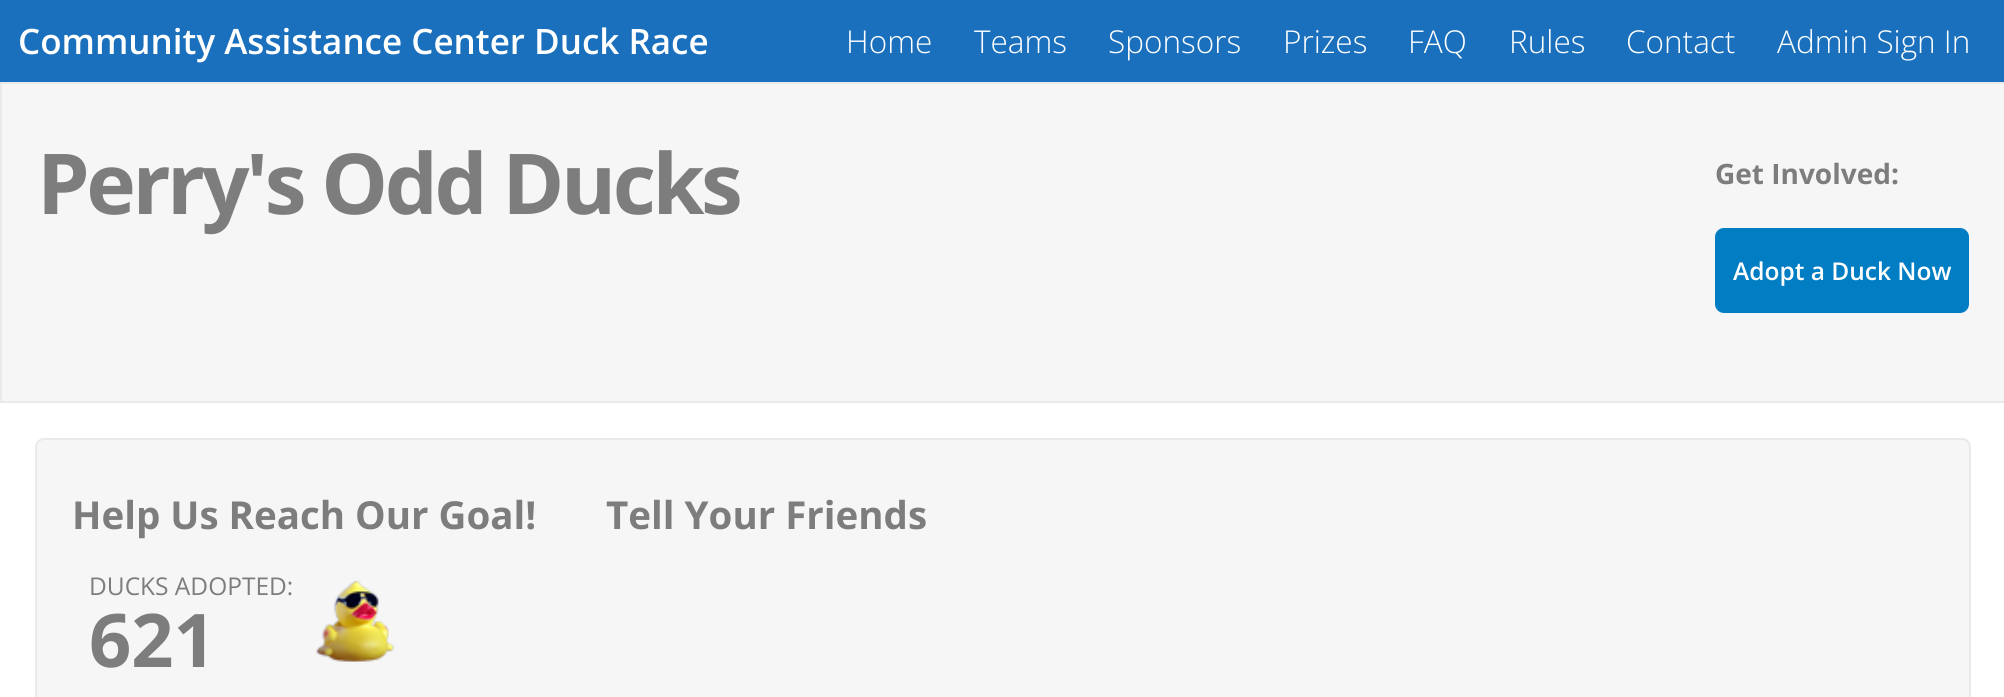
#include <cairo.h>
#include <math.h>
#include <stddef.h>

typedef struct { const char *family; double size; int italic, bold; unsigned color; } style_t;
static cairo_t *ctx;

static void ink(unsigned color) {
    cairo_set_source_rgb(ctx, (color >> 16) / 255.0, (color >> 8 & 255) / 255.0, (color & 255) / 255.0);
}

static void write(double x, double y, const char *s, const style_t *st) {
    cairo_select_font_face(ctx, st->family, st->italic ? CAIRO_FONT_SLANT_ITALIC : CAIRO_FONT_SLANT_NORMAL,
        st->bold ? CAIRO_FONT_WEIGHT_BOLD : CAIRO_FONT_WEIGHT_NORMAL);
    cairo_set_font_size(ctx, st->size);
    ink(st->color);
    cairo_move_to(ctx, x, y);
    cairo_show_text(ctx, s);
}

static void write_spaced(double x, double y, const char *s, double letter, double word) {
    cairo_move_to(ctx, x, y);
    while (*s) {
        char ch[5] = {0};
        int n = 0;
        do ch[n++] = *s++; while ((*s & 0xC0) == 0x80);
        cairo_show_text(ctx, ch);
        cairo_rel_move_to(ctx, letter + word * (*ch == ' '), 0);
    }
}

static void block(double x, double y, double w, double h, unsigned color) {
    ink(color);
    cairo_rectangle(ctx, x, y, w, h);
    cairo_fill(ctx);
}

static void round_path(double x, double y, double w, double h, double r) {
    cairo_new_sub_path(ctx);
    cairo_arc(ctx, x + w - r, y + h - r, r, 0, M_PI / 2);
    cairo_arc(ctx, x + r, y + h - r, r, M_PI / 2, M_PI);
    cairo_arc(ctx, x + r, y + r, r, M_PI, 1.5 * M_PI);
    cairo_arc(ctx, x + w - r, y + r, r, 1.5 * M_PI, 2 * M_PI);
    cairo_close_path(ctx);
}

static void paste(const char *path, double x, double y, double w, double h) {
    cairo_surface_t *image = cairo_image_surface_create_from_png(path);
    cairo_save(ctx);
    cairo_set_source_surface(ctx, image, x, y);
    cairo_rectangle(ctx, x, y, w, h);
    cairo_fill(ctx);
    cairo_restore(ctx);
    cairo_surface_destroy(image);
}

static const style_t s1 = {"Open Sans SemiBold", 35, 0, 0, 0xffffff};
static const style_t s2 = {"Open Sans Light", 31.5, 0, 0, 0xffffff};
static const style_t s3 = {"Open Sans", 28, 0, 1, 0x7d7d7d};
static const style_t s4 = {"Open Sans SemiBold", 24.5, 0, 0, 0xffffff};
static const style_t s5 = {"Open Sans", 38.5, 0, 1, 0x7d7d7d};
static const style_t s6 = {"Open Sans", 24.5, 0, 0, 0x7d7d7d};
static const style_t s7 = {"Open Sans", 74, 0, 1, 0x7d7d7d};

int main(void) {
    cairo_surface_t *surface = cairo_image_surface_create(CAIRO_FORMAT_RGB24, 2004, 697);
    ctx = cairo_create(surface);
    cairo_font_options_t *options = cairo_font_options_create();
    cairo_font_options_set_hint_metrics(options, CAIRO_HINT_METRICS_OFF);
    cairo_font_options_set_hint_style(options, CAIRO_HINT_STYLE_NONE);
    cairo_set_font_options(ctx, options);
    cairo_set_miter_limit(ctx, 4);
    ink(0xffffff);
    cairo_paint(ctx);
    block(0, 0, 2004, 82, 0x1a70bd);
    write(18, 54, "Community Assistance Center Duck Race", &s1);
    write(846, 53, "Home", &s2);
    write(974, 53, "Teams", &s2);
    write(1108, 53, "Sponsors", &s2);
    write(1283, 53, "Prizes", &s2);
    write(1408, 53, "FAQ", &s2);
    write(1509, 53, "Rules", &s2);
    write(1626, 53, "Contact", &s2);
    write(1777, 53, "Admin Sign In", &s2);
    ink(0xf6f6f6);
    cairo_rectangle(ctx, 1, 83, 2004, 319);
    cairo_fill_preserve(ctx);
    ink(0xeaeaea);
    cairo_stroke(ctx);
    cairo_select_font_face(ctx, "Open Sans", CAIRO_FONT_SLANT_NORMAL, CAIRO_FONT_WEIGHT_BOLD);
    cairo_set_font_size(ctx, 84);
    ink(0x7d7d7d);
    write_spaced(37, 214, "Perry's Odd Ducks", -3.5, 0);
    write(1715, 184, "Get Involved:", &s3);
    ink(0x017dc3);
    round_path(1715, 228, 254, 85, 9);
    cairo_fill(ctx);
    write(1733, 280, "Adopt a Duck Now", &s4);
    ink(0xf6f6f6);
    round_path(36, 439, 1934, 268, 8);
    cairo_fill_preserve(ctx);
    ink(0xeaeaea);
    cairo_stroke(ctx);
    write(72, 529, "Help Us Reach Our Goal!", &s5);
    paste("pic1.png", 316, 580, 79, 82);
    write(89, 595, "DUCKS ADOPTED:", &s6);
    write(89, 667, "621", &s7);
    write(606, 529, "Tell Your Friends", &s5);
    cairo_surface_write_to_png(surface, "screenshot.png");
    cairo_font_options_destroy(options);
    cairo_destroy(ctx);
    cairo_surface_destroy(surface);
    return 0;
}
